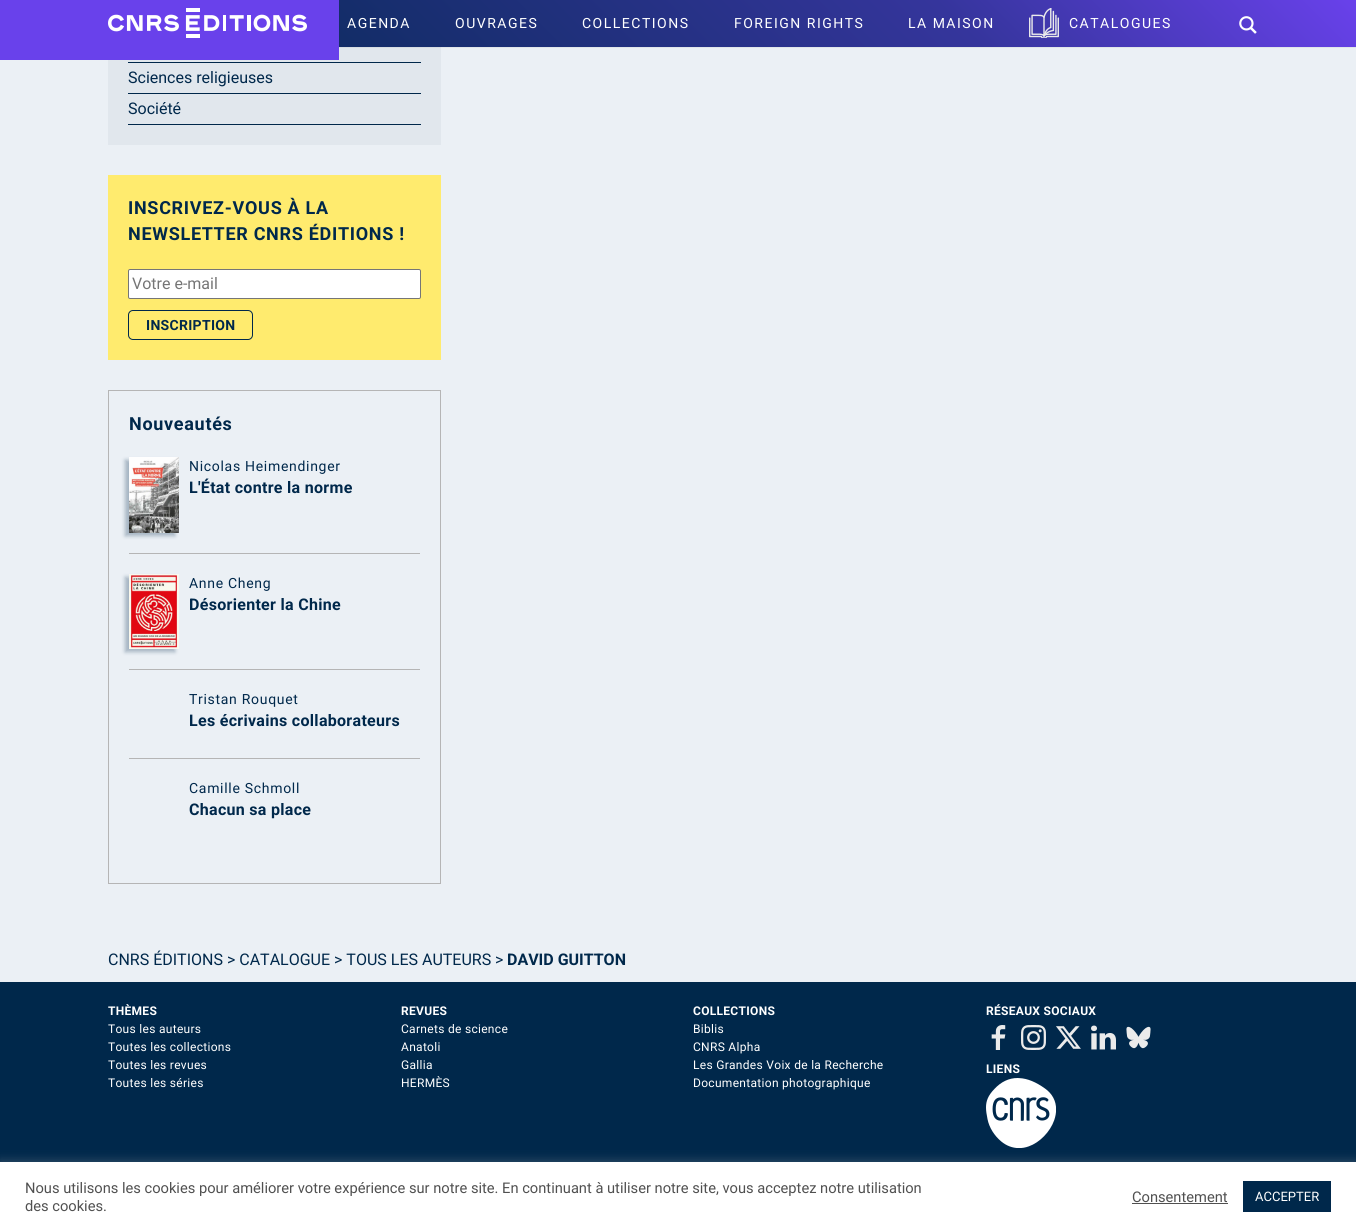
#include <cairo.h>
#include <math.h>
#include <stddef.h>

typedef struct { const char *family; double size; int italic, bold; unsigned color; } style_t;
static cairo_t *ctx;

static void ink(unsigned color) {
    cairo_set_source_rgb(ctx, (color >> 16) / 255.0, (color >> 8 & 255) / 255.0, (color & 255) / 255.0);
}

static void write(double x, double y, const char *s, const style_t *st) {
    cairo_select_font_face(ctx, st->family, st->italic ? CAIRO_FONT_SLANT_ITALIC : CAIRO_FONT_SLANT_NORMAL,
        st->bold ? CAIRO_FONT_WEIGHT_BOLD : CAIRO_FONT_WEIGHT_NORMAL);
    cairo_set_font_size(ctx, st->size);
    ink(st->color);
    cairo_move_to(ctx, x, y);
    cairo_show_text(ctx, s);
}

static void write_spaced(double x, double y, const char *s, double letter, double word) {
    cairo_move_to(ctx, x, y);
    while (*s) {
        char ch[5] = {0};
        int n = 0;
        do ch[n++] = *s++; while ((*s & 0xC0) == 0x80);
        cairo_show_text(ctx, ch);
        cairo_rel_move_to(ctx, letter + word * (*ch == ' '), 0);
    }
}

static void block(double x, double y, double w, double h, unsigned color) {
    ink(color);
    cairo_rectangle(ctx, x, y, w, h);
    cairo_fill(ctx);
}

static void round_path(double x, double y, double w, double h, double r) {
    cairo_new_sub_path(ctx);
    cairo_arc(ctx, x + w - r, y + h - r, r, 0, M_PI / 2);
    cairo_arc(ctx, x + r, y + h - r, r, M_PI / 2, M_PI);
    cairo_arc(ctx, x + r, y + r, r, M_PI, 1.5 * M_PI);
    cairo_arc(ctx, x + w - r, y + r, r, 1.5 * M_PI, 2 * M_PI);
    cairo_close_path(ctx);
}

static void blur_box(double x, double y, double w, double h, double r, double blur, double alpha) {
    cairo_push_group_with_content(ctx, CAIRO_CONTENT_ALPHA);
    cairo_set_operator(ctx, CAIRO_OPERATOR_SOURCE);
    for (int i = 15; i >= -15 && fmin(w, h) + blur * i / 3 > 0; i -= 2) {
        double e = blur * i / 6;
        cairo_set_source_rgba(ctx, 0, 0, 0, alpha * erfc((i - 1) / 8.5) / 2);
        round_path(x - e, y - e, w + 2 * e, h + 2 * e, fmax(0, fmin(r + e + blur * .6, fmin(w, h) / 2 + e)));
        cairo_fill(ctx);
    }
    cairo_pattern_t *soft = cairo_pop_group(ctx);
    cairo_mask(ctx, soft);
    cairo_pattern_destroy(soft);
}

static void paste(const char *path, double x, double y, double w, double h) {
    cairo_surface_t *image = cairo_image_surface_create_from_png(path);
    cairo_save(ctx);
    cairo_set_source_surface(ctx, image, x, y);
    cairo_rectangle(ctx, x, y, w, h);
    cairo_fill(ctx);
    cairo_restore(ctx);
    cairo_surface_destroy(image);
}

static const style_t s1 = {"Roboto", 16, 0, 0, 0x00284b};
static const style_t s2 = {"Roboto", 16, 0, 0, 0x757575};
static const style_t s3 = {"Roboto", 16, 0, 1, 0x00284b};
static const style_t s4 = {"Roboto", 14.67, 0, 0, 0x505050};
static const style_t s5 = {"Roboto", 13, 0, 0, 0xffffff};

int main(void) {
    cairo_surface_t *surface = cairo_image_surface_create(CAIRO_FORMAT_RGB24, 1356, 1231);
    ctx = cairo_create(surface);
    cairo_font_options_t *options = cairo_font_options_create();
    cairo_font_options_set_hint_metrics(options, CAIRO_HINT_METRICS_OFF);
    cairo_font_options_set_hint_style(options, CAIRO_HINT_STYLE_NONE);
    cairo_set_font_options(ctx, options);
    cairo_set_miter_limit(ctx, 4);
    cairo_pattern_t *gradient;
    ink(0xebf0f5);
    cairo_paint(ctx);
    block(108, 47, 333, 98, 0xe1e7ed);
    cairo_set_source_rgba(ctx, 0, 0, 0, 0.05);
    cairo_rectangle(ctx, 339, 47, 1017, 1);
    cairo_fill(ctx);
    gradient = cairo_pattern_create_linear(327, 374, 1029, -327);
    cairo_pattern_add_color_stop_rgba(gradient, 0, 0, 0.157, 0.294, 1);
    cairo_pattern_add_color_stop_rgba(gradient, 0.7, 0.208, 0.208, 0.612, 1);
    cairo_pattern_add_color_stop_rgba(gradient, 1, 0.412, 0.255, 0.922, 1);
    cairo_set_source(ctx, gradient);
    cairo_pattern_destroy(gradient);
    cairo_rectangle(ctx, 339, 0, 1017, 47);
    cairo_fill(ctx);
    block(0, 0, 339, 60, 0x6941eb);
    paste("pic1.png", 108, 8, 199, 30);
    cairo_select_font_face(ctx, "Roboto", CAIRO_FONT_SLANT_NORMAL, CAIRO_FONT_WEIGHT_NORMAL);
    cairo_set_font_size(ctx, 14);
    ink(0xffffff);
    write_spaced(347, 28, "AGENDA", 1.5, 0);
    write_spaced(455, 28, "OUVRAGES", 1.5, 0);
    write_spaced(582, 28, "COLLECTIONS", 1.5, 0);
    write_spaced(734, 28, "FOREIGN RIGHTS", 1.5, 0);
    write_spaced(908, 28, "LA MAISON", 1.5, 0);
    paste("pic2.png", 1029, 8, 30, 30);
    write_spaced(1069, 28, "CATALOGUES", 1.5, 0);
    paste("pic3.png", 1239, 16, 18, 18);
    block(128, 62, 293, 1, 0x00284b);
    block(128, 93, 293, 1, 0x00284b);
    write(128, 83, "Sciences religieuses", &s1);
    block(128, 124, 293, 1, 0x00284b);
    write(128, 114, "Société", &s1);
    block(108, 175, 333, 185, 0xffeb6e);
    cairo_select_font_face(ctx, "Roboto", CAIRO_FONT_SLANT_NORMAL, CAIRO_FONT_WEIGHT_BOLD);
    cairo_set_font_size(ctx, 18);
    ink(0x00284b);
    write_spaced(128, 214, "INSCRIVEZ-VOUS À LA", 0.7, 0);
    write_spaced(128, 240, "NEWSLETTER CNRS ÉDITIONS !", 0.7, 0);
    ink(0xffffff);
    round_path(128.5, 269.5, 292, 29, 1.5);
    cairo_fill_preserve(ctx);
    ink(0x767676);
    cairo_set_line_width(ctx, 1);
    cairo_stroke(ctx);
    write(132, 289, "Votre e-mail", &s2);
    round_path(128.5, 310.5, 124, 29, 4.5);
    ink(0x00284b);
    cairo_stroke(ctx);
    cairo_select_font_face(ctx, "Roboto", CAIRO_FONT_SLANT_NORMAL, CAIRO_FONT_WEIGHT_BOLD);
    cairo_set_font_size(ctx, 14);
    write_spaced(146, 330, "INSCRIPTION", 0.3, 0);
    cairo_rectangle(ctx, 108.5, 390.5, 332, 493);
    ink(0xb5b5b5);
    cairo_stroke(ctx);
    cairo_set_font_size(ctx, 18);
    ink(0x00284b);
    write_spaced(129, 430, "Nouveautés", 0.7, 0);
    block(129, 553, 291, 1, 0xb5b5b5);
    ink(0x00284b);
    blur_box(125, 460, 50, 76, 0, 2, 0.3);
    paste("pic4.png", 129, 457, 50, 76);
    cairo_select_font_face(ctx, "Roboto", CAIRO_FONT_SLANT_NORMAL, CAIRO_FONT_WEIGHT_NORMAL);
    cairo_set_font_size(ctx, 14);
    ink(0x00284b);
    write_spaced(189, 471, "Nicolas Heimendinger", 0.7, 0);
    cairo_select_font_face(ctx, "Roboto", CAIRO_FONT_SLANT_NORMAL, CAIRO_FONT_WEIGHT_BOLD);
    cairo_set_font_size(ctx, 16);
    write_spaced(189, 493, "L'État contre la norme", 0.3, 0);
    block(129, 669, 291, 1, 0xb5b5b5);
    ink(0x00284b);
    blur_box(125, 577, 50, 75, 0, 2, 0.3);
    paste("pic5.png", 129, 574, 50, 75);
    cairo_select_font_face(ctx, "Roboto", CAIRO_FONT_SLANT_NORMAL, CAIRO_FONT_WEIGHT_NORMAL);
    cairo_set_font_size(ctx, 14);
    ink(0x00284b);
    write_spaced(189, 588, "Anne Cheng", 0.7, 0);
    cairo_select_font_face(ctx, "Roboto", CAIRO_FONT_SLANT_NORMAL, CAIRO_FONT_WEIGHT_BOLD);
    cairo_set_font_size(ctx, 16);
    write_spaced(189, 610, "Désorienter la Chine", 0.3, 0);
    block(129, 758, 291, 1, 0xb5b5b5);
    cairo_select_font_face(ctx, "Roboto", CAIRO_FONT_SLANT_NORMAL, CAIRO_FONT_WEIGHT_NORMAL);
    cairo_set_font_size(ctx, 14);
    ink(0x00284b);
    write_spaced(189, 704, "Tristan Rouquet", 0.7, 0);
    cairo_select_font_face(ctx, "Roboto", CAIRO_FONT_SLANT_NORMAL, CAIRO_FONT_WEIGHT_BOLD);
    cairo_set_font_size(ctx, 16);
    write_spaced(189, 726, "Les écrivains collaborateurs", 0.3, 0);
    cairo_select_font_face(ctx, "Roboto", CAIRO_FONT_SLANT_NORMAL, CAIRO_FONT_WEIGHT_NORMAL);
    cairo_set_font_size(ctx, 14);
    write_spaced(189, 793, "Camille Schmoll", 0.7, 0);
    cairo_select_font_face(ctx, "Roboto", CAIRO_FONT_SLANT_NORMAL, CAIRO_FONT_WEIGHT_BOLD);
    cairo_set_font_size(ctx, 16);
    write_spaced(189, 815, "Chacun sa place", 0.3, 0);
    write(108, 965, "CNRS ÉDITIONS > CATALOGUE > TOUS LES AUTEURS >", &s1);
    write(507, 965, "DAVID GUITTON", &s3);
    block(0, 982, 1356, 180, 0x00284b);
    cairo_set_font_size(ctx, 12);
    ink(0xffffff);
    write_spaced(108, 1015, "THÈMES", 0.3, 0);
    cairo_select_font_face(ctx, "Roboto", CAIRO_FONT_SLANT_NORMAL, CAIRO_FONT_WEIGHT_NORMAL);
    write_spaced(108, 1033, "Tous les auteurs", 0.3, 0);
    write_spaced(108, 1051, "Toutes les collections", 0.3, 0);
    write_spaced(108, 1069, "Toutes les revues", 0.3, 0);
    write_spaced(108, 1087, "Toutes les séries", 0.3, 0);
    cairo_select_font_face(ctx, "Roboto", CAIRO_FONT_SLANT_NORMAL, CAIRO_FONT_WEIGHT_BOLD);
    write_spaced(401, 1015, "REVUES", 0.3, 0);
    cairo_select_font_face(ctx, "Roboto", CAIRO_FONT_SLANT_NORMAL, CAIRO_FONT_WEIGHT_NORMAL);
    write_spaced(401, 1033, "Carnets de science", 0.3, 0);
    write_spaced(401, 1051, "Anatoli", 0.3, 0);
    write_spaced(401, 1069, "Gallia", 0.3, 0);
    write_spaced(401, 1087, "HERMÈS", 0.3, 0);
    cairo_select_font_face(ctx, "Roboto", CAIRO_FONT_SLANT_NORMAL, CAIRO_FONT_WEIGHT_BOLD);
    write_spaced(693, 1015, "COLLECTIONS", 0.3, 0);
    cairo_select_font_face(ctx, "Roboto", CAIRO_FONT_SLANT_NORMAL, CAIRO_FONT_WEIGHT_NORMAL);
    write_spaced(693, 1033, "Biblis", 0.3, 0);
    write_spaced(693, 1051, "CNRS Alpha", 0.3, 0);
    write_spaced(693, 1069, "Les Grandes Voix de la Recherche", 0.3, 0);
    write_spaced(693, 1087, "Documentation photographique", 0.3, 0);
    cairo_select_font_face(ctx, "Roboto", CAIRO_FONT_SLANT_NORMAL, CAIRO_FONT_WEIGHT_BOLD);
    write_spaced(986, 1015, "RÉSEAUX SOCIAUX", 0.3, 0);
    paste("pic6.png", 991, 1025, 15, 25);
    paste("pic7.png", 1021, 1025, 25, 25);
    paste("pic8.png", 1056, 1026, 25, 23);
    paste("pic9.png", 1091, 1025, 25, 25);
    paste("pic10.png", 1126, 1026, 25, 23);
    write_spaced(986, 1073, "LIENS", 0.3, 0);
    paste("pic11.png", 986, 1078, 70, 70);
    ink(0xacabab);
    blur_box(0, 1161, 1356, 69, 0, 5, 0.3);
    block(0, 1162, 1356, 69, 0xffffff);
    write(25, 1193, "Nous utilisons les cookies pour améliorer votre expérience sur notre site. En continuant à utiliser notre site, vous acceptez notre utilisation", &s4);
    write(25, 1211, "des cookies.", &s4);
    write(1132, 1202, "Consentement", &s4);
    block(1132, 1203, 96, 1, 0x505050);
    block(1243, 1181, 88, 31, 0x00284b);
    write(1255, 1201, "ACCEPTER", &s5);
    cairo_surface_write_to_png(surface, "screenshot.png");
    cairo_font_options_destroy(options);
    cairo_destroy(ctx);
    cairo_surface_destroy(surface);
    return 0;
}
